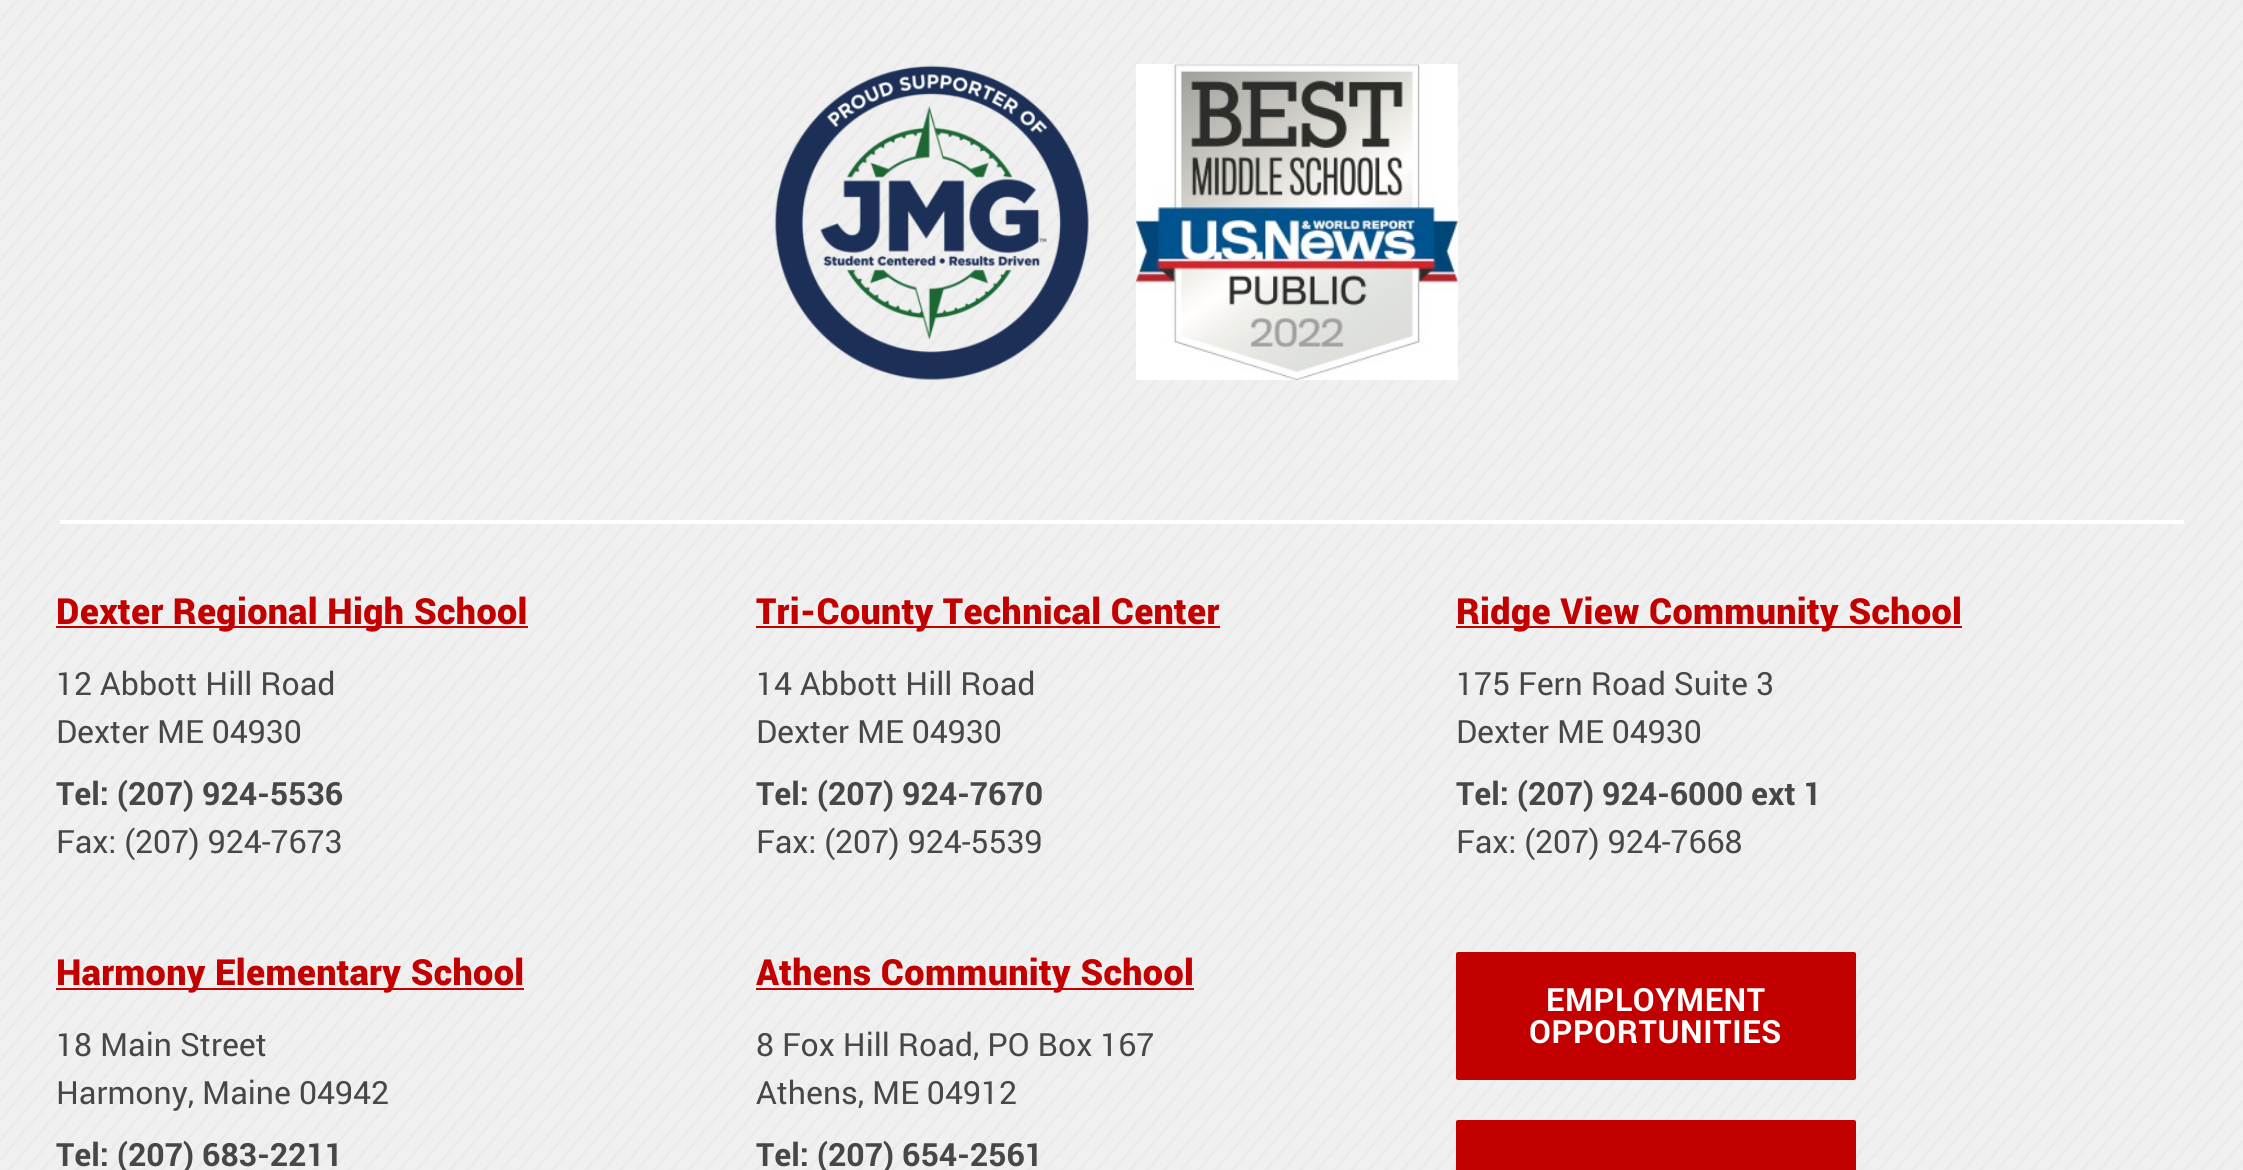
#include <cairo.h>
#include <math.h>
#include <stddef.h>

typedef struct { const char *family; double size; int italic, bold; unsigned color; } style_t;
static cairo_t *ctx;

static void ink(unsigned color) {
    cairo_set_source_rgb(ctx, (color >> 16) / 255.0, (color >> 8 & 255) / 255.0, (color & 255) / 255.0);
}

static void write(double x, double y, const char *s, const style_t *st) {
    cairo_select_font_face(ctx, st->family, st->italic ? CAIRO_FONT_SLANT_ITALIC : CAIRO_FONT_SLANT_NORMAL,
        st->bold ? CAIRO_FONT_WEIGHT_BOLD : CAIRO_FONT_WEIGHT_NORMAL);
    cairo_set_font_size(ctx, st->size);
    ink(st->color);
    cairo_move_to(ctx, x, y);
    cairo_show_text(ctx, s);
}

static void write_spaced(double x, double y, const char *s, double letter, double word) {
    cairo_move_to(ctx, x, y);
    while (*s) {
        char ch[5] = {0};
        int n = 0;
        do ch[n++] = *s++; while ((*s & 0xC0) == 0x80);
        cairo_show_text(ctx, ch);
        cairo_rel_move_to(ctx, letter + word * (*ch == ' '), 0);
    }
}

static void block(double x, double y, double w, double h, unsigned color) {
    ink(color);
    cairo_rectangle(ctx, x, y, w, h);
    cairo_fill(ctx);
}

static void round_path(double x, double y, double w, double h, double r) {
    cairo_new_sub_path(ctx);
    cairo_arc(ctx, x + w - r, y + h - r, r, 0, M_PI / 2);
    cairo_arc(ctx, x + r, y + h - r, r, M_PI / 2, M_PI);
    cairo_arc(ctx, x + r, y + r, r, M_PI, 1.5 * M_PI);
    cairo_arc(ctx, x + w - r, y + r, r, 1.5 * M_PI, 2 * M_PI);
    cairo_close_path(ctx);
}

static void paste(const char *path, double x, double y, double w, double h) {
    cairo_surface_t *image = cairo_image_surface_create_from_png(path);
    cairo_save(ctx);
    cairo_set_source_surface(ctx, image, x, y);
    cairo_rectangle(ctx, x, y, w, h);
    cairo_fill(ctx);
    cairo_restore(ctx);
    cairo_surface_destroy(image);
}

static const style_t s1 = {"Roboto", 32, 0, 0, 0x474747};
static const style_t s2 = {"Roboto", 32, 0, 1, 0x474747};

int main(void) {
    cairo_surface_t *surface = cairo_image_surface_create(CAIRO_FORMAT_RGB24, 2243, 1170);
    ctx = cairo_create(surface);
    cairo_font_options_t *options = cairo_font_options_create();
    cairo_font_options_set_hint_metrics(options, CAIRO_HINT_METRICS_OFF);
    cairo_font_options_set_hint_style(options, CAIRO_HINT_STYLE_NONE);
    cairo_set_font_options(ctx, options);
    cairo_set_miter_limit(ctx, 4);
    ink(0xf0f0f0);
    cairo_paint(ctx);
    paste("pic1.png", 0, 0, 2243, 1170);
    block(60, 520, 2124, 4, 0xffffff);
    paste("pic2.png", 774, 65, 315, 315);
    paste("pic3.png", 1136, 64, 322, 316);
    block(56, 626, 472, 2, 0xc30000);
    cairo_select_font_face(ctx, "Roboto Black", CAIRO_FONT_SLANT_NORMAL, CAIRO_FONT_WEIGHT_NORMAL);
    cairo_set_font_size(ctx, 36);
    write_spaced(56, 624, "Dexter Regional High School", 0.35, 0);
    write(56, 695, "12 Abbott Hill Road", &s1);
    write(56, 743, "Dexter ME 04930", &s1);
    write(56, 805, "Tel: (207) 924-5536", &s2);
    write(56, 853, "Fax: (207) 924-7673", &s1);
    block(756, 626, 464, 2, 0xc30000);
    cairo_select_font_face(ctx, "Roboto Black", CAIRO_FONT_SLANT_NORMAL, CAIRO_FONT_WEIGHT_NORMAL);
    cairo_set_font_size(ctx, 36);
    write_spaced(756, 624, "Tri-County Technical Center", 0.35, 0);
    write(756, 695, "14 Abbott Hill Road", &s1);
    write(756, 743, "Dexter ME 04930", &s1);
    write(756, 805, "Tel: (207) 924-7670", &s2);
    write(756, 853, "Fax: (207) 924-5539", &s1);
    block(1456, 626, 506, 2, 0xc30000);
    cairo_select_font_face(ctx, "Roboto Black", CAIRO_FONT_SLANT_NORMAL, CAIRO_FONT_WEIGHT_NORMAL);
    cairo_set_font_size(ctx, 36);
    write_spaced(1456, 624, "Ridge View Community School", 0.35, 0);
    write(1456, 695, "175 Fern Road Suite 3", &s1);
    write(1456, 743, "Dexter ME 04930", &s1);
    write(1456, 805, "Tel: (207) 924-6000 ext 1", &s2);
    write(1456, 853, "Fax: (207) 924-7668", &s1);
    block(56, 988, 468, 2, 0xc30000);
    cairo_select_font_face(ctx, "Roboto Black", CAIRO_FONT_SLANT_NORMAL, CAIRO_FONT_WEIGHT_NORMAL);
    cairo_set_font_size(ctx, 36);
    write_spaced(56, 985, "Harmony Elementary School", 0.35, 0);
    write(56, 1056, "18 Main Street", &s1);
    write(56, 1104, "Harmony, Maine 04942", &s1);
    write(56, 1166, "Tel: (207) 683-2211", &s2);
    block(756, 988, 438, 2, 0xc30000);
    cairo_select_font_face(ctx, "Roboto Black", CAIRO_FONT_SLANT_NORMAL, CAIRO_FONT_WEIGHT_NORMAL);
    cairo_set_font_size(ctx, 36);
    write_spaced(756, 985, "Athens Community School", 0.35, 0);
    write(756, 1056, "8 Fox Hill Road, PO Box 167", &s1);
    write(756, 1104, "Athens, ME 04912", &s1);
    write(756, 1166, "Tel: (207) 654-2561", &s2);
    ink(0xc30000);
    round_path(1456, 952, 400, 128, 2);
    cairo_fill(ctx);
    ink(0xffffff);
    write_spaced(1546, 1011, "EMPLOYMENT", 0.6, 0);
    write_spaced(1529, 1043, "OPPORTUNITIES", 0.6, 0);
    ink(0xc30000);
    round_path(1456, 1120, 400, 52, 2);
    cairo_fill(ctx);
    cairo_surface_write_to_png(surface, "screenshot.png");
    cairo_font_options_destroy(options);
    cairo_destroy(ctx);
    cairo_surface_destroy(surface);
    return 0;
}
